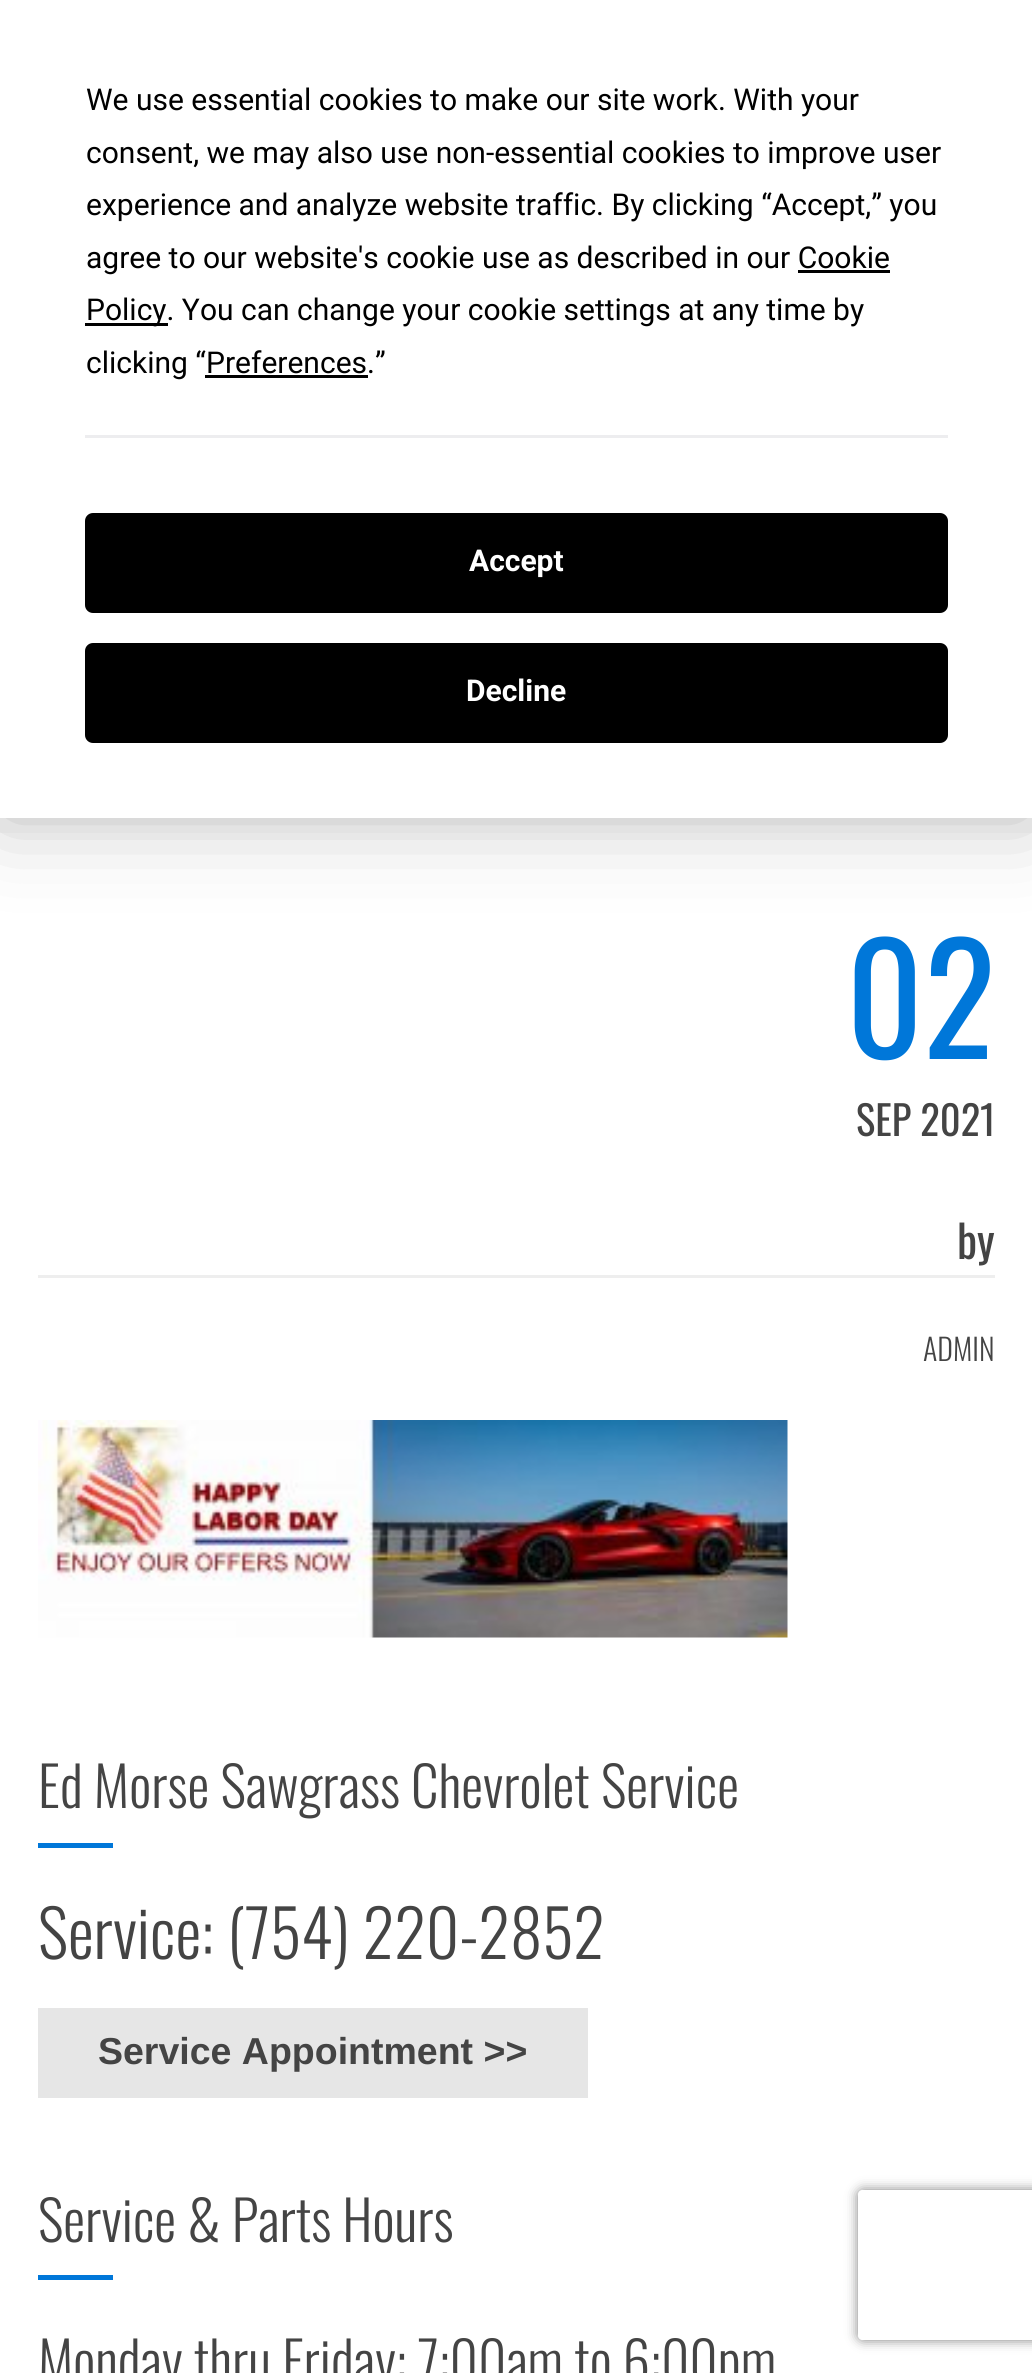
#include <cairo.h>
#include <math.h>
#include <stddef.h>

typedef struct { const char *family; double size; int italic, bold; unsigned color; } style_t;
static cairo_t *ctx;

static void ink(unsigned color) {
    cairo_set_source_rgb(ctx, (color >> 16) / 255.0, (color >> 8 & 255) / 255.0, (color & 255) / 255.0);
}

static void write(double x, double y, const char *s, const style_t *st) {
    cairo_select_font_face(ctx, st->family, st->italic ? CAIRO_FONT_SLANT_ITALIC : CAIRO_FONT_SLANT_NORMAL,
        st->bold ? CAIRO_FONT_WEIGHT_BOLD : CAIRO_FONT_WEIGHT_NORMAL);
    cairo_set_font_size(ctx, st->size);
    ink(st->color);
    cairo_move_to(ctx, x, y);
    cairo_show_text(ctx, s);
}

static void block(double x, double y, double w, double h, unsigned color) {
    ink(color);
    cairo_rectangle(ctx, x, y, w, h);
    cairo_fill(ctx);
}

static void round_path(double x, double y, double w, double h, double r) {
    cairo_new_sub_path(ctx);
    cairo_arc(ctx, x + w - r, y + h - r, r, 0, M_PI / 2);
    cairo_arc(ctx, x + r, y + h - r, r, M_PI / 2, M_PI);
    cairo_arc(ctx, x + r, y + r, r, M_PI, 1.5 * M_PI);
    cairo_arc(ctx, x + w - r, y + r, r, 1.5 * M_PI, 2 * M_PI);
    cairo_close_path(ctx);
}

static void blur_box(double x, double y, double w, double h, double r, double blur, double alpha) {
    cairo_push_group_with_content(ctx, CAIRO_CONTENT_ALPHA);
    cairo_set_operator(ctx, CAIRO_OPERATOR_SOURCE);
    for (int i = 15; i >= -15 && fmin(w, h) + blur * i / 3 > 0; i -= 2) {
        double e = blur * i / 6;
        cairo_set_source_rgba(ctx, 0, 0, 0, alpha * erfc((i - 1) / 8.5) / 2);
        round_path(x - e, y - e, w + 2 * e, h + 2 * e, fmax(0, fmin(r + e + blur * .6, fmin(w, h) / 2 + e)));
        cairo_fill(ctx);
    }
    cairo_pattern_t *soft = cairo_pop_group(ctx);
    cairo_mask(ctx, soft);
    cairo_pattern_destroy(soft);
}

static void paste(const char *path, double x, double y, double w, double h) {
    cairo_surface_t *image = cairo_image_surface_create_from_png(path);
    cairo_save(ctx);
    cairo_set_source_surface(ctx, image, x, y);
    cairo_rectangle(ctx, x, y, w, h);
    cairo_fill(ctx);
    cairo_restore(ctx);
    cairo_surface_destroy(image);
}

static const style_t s1 = {"Roboto", 30, 0, 0, 0x000000};
static const style_t s2 = {"Roboto", 30, 0, 1, 0xffffff};
static const style_t s3 = {"Oswald", 150, 0, 0, 0x0077d9};
static const style_t s4 = {"Oswald", 40.5, 0, 0, 0x444444};
static const style_t s5 = {"Oswald", 45, 0, 0, 0x444444};
static const style_t s6 = {"Oswald Light", 30, 0, 0, 0x444444};
static const style_t s7 = {"Oswald Light", 55, 0, 0, 0x444444};
static const style_t s8 = {"Oswald Light", 65, 0, 0, 0x444444};
static const style_t s9 = {"Liberation Sans", 37.5, 0, 1, 0x444444};

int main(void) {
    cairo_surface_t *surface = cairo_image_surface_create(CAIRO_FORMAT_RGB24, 1032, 2373);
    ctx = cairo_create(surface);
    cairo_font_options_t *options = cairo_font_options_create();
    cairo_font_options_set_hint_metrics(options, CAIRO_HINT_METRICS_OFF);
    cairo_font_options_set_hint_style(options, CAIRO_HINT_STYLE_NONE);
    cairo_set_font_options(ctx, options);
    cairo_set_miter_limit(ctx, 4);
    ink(0xffffff);
    cairo_paint(ctx);
    block(0, 818, 1032, 15, 0xf9f9f9);
    ink(0x000000);
    blur_box(0, 0, 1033, 818, 0, 44, 0.25);
    block(0, 0, 1032, 818, 0xffffff);
    write(86, 110, "We use essential cookies to make our site work. With your", &s1);
    write(86, 163, "consent, we may also use non-essential cookies to improve user", &s1);
    write(86, 215, "experience and analyze website traffic. By clicking “Accept,” you", &s1);
    write(86, 268, "agree to our website's cookie use as described in our Cookie", &s1);
    block(85, 323, 83, 3, 0x000000);
    write(86, 320, "Policy. You can change your cookie settings at any time by", &s1);
    block(798, 270, 92, 3, 0x000000);
    write(86, 373, "clicking “Preferences.”", &s1);
    block(205, 375, 163, 3, 0x000000);
    block(85, 435, 863, 3, 0xededef);
    ink(0x000000);
    round_path(86.5, 514.5, 860, 97, 6.5);
    cairo_fill_preserve(ctx);
    cairo_set_line_width(ctx, 3);
    cairo_stroke(ctx);
    write(469, 571, "Accept", &s2);
    ink(0x000000);
    round_path(86.5, 644.5, 860, 97, 6.5);
    cairo_fill_preserve(ctx);
    cairo_stroke(ctx);
    write(466, 701, "Decline", &s2);
    write(846, 1059, "02", &s3);
    write(856, 1136, "SEP 2021", &s4);
    write(957, 1259, "by", &s5);
    block(38, 1275, 957, 3, 0xeeeeee);
    write(923, 1361, "ADMIN", &s6);
    paste("pic1.png", 38, 1420, 750, 218);
    write(38, 1808, "Ed Morse Sawgrass Chevrolet Service", &s7);
    block(38, 1843, 75, 5, 0x0077d9);
    write(38, 1959, "Service: (754) 220-2852", &s8);
    block(38, 2008, 550, 90, 0xe6e6e6);
    write(98, 2064, "Service Appointment >>", &s9);
    write(38, 2242, "Service & Parts Hours", &s7);
    block(38, 2275, 75, 5, 0x0077d9);
    write(38, 2383, "Monday thru Friday: 7:00am to 6:00pm", &s7);
    cairo_save(ctx);
    cairo_set_fill_rule(ctx, CAIRO_FILL_RULE_EVEN_ODD);
    cairo_new_path(ctx);
    cairo_move_to(ctx, 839, 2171);
    cairo_line_to(ctx, 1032, 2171);
    cairo_line_to(ctx, 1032, 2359);
    cairo_line_to(ctx, 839, 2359);
    cairo_close_path(ctx);
    cairo_move_to(ctx, 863, 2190);
    cairo_line_to(ctx, 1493, 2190);
    cairo_curve_to(ctx, 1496, 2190, 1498, 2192, 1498, 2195);
    cairo_line_to(ctx, 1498, 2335);
    cairo_curve_to(ctx, 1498, 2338, 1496, 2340, 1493, 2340);
    cairo_line_to(ctx, 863, 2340);
    cairo_curve_to(ctx, 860, 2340, 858, 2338, 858, 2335);
    cairo_line_to(ctx, 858, 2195);
    cairo_curve_to(ctx, 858, 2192, 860, 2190, 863, 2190);
    cairo_close_path(ctx);
    cairo_clip(ctx);
    ink(0x808080);
    blur_box(858, 2190, 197, 150, 5, 6, 1);
    cairo_restore(ctx);
    cairo_surface_write_to_png(surface, "screenshot.png");
    cairo_font_options_destroy(options);
    cairo_destroy(ctx);
    cairo_surface_destroy(surface);
    return 0;
}
